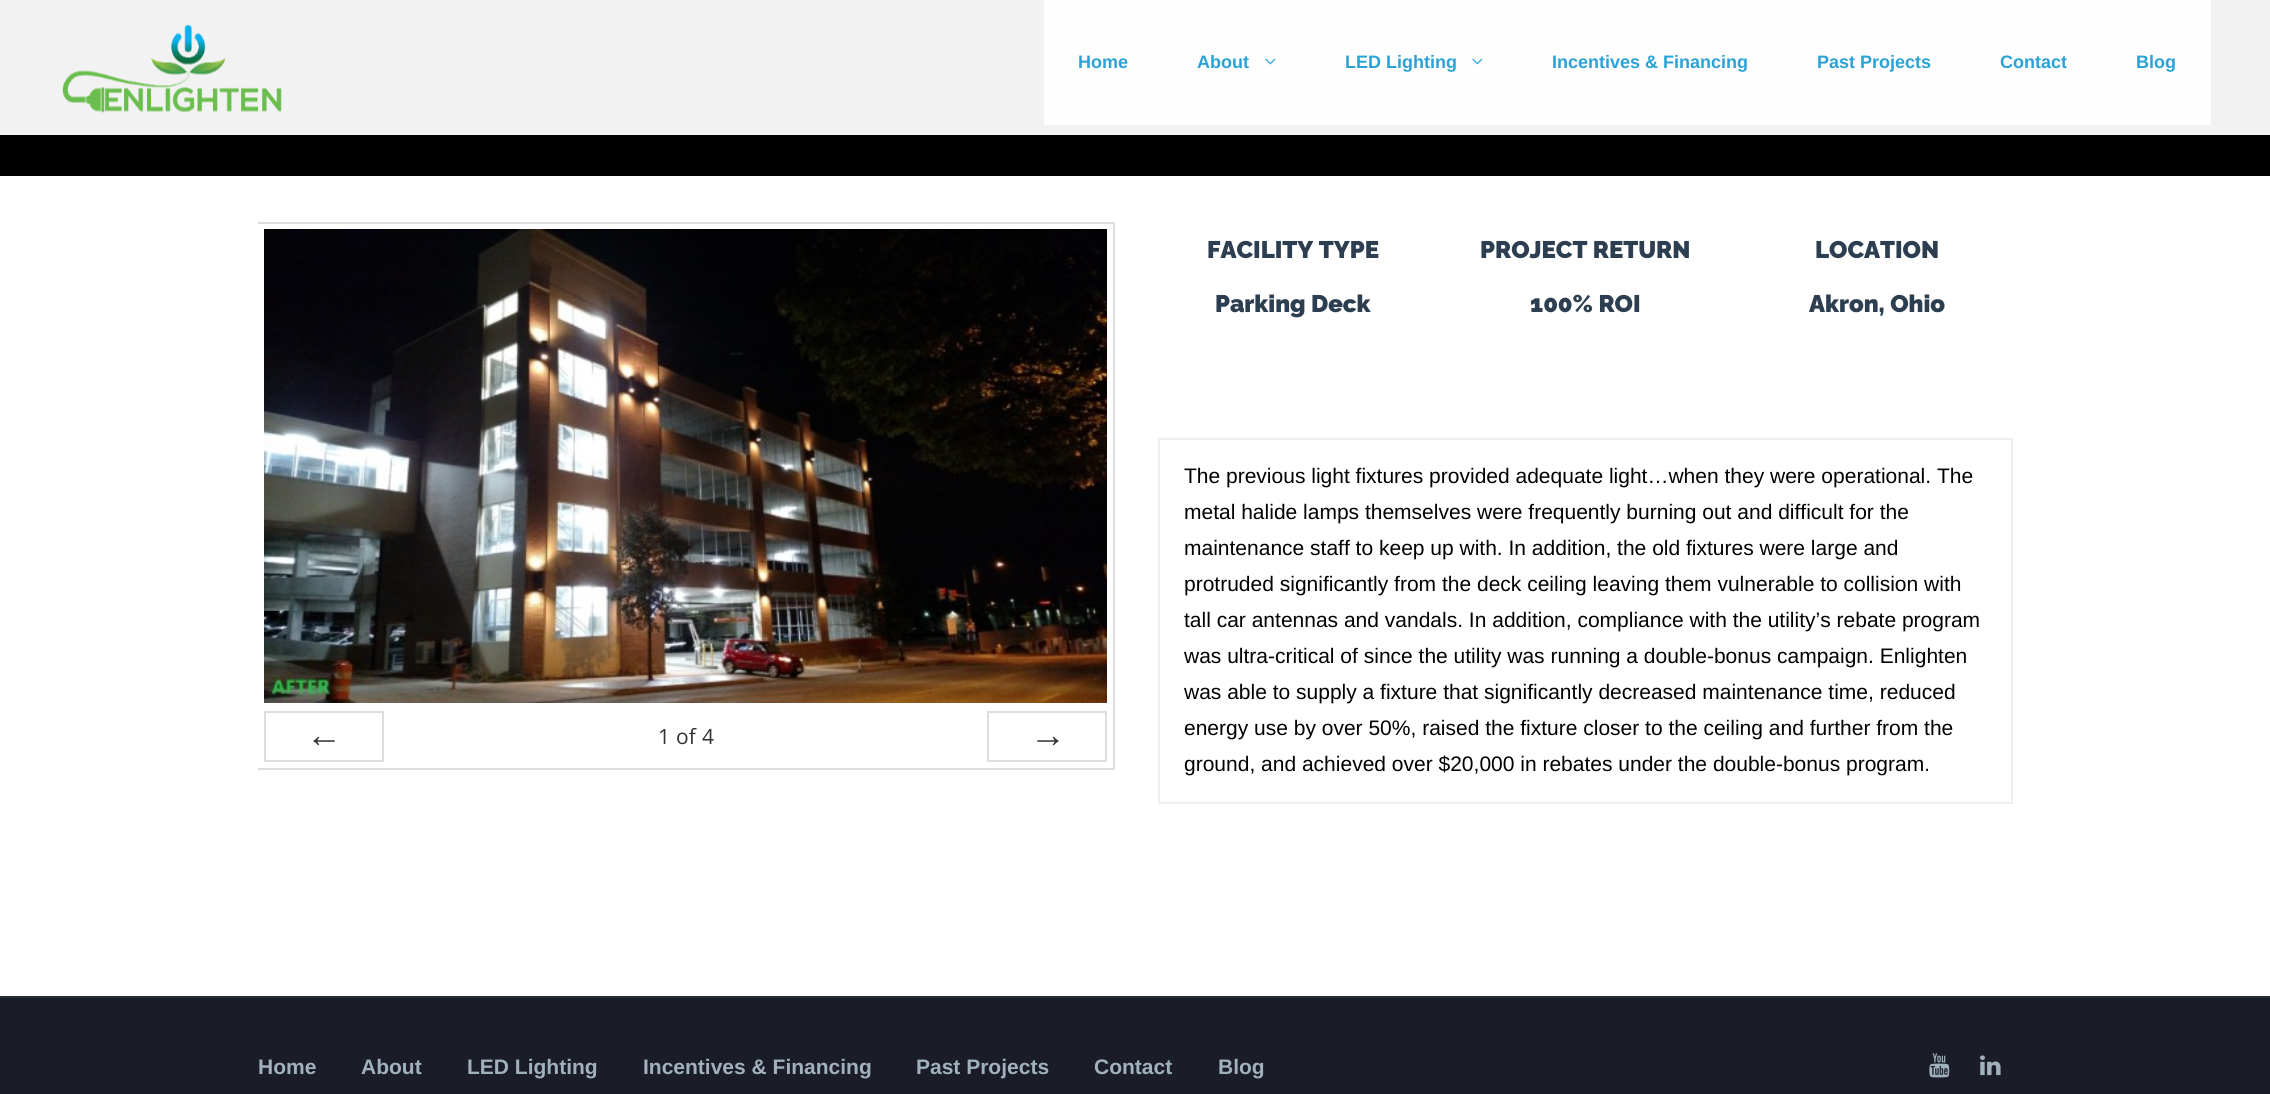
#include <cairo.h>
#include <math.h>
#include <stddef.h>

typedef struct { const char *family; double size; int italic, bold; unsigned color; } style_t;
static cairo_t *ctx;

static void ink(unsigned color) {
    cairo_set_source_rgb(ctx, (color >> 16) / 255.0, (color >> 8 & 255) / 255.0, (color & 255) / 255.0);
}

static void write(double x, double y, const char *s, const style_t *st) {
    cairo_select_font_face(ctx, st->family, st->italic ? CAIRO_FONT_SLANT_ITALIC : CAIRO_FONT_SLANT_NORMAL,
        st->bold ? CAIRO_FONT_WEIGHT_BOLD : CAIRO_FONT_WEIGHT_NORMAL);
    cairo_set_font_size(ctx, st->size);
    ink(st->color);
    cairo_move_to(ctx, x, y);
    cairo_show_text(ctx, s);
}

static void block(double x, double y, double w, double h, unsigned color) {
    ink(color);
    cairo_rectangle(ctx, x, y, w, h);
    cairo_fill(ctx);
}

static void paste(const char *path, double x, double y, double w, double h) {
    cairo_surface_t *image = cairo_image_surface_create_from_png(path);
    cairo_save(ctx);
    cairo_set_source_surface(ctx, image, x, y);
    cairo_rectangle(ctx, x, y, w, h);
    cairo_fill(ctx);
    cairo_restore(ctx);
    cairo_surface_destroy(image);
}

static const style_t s1 = {"Liberation Sans", 18, 0, 1, 0x2aa2d6};
static const style_t s2 = {"Liberation Sans", 36, 0, 0, 0x333333};
static const style_t s3 = {"Open Sans", 21, 0, 0, 0x333333};
static const style_t s4 = {"Raleway Black", 24, 0, 0, 0x2c3e50};
static const style_t s5 = {"Liberation Sans", 21, 0, 0, 0x000000};
static const style_t s6 = {"Liberation Sans", 21, 0, 1, 0xa1b1bc};

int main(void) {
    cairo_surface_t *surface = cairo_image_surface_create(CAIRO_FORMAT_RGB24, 2270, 1094);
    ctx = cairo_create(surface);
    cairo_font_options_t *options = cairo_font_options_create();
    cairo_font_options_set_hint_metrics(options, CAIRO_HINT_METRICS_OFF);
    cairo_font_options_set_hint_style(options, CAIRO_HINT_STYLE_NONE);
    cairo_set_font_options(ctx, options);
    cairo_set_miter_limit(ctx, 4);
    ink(0xffffff);
    cairo_paint(ctx);
    block(0, 0, 2270, 135, 0xf2f2f2);
    paste("pic1.png", 62, 24, 220, 89);
    cairo_set_source_rgba(ctx, 1, 1, 1, 0.95);
    cairo_rectangle(ctx, 1044, 0, 1167, 125);
    cairo_fill(ctx);
    write(1078, 68, "Home", &s1);
    write(1197, 68, "About", &s1);
    paste("pic2.png", 1265, 58, 11, 7);
    write(1345, 68, "LED Lighting", &s1);
    paste("pic2.png", 1472, 58, 11, 7);
    write(1552, 68, "Incentives & Financing", &s1);
    write(1817, 68, "Past Projects", &s1);
    write(2000, 68, "Contact", &s1);
    write(2136, 68, "Blog", &s1);
    block(0, 135, 2270, 41, 0x000000);
    cairo_save(ctx);
    cairo_rectangle(ctx, 258, 176, 1755, 708);
    cairo_clip(ctx);
    cairo_rectangle(ctx, 258, 223, 856, 546);
    ink(0xdddddd);
    cairo_stroke(ctx);
    cairo_restore(ctx);
    paste("pic3.png", 264, 229, 843, 474);
    block(258, 710, 1, 2, 0xffffff);
    block(258, 224, 1, 544, 0xffffff);
    cairo_rectangle(ctx, 265, 712, 118, 49);
    ink(0xdddddd);
    cairo_stroke(ctx);
    write(306, 747, "←", &s2);
    write(658, 744, "1", &s3);
    write(676, 744, "of", &s3);
    write(702, 744, "4", &s3);
    cairo_rectangle(ctx, 988, 712, 118, 49);
    ink(0xdddddd);
    cairo_stroke(ctx);
    write(1030, 747, "→", &s2);
    write(1207, 258, "FACILITY TYPE", &s4);
    write(1215, 312, "Parking Deck", &s4);
    write(1480, 258, "PROJECT RETURN", &s4);
    write(1530, 312, "100% ROI", &s4);
    write(1815, 258, "LOCATION", &s4);
    write(1809, 312, "Akron, Ohio", &s4);
    cairo_rectangle(ctx, 1159, 439, 853, 364);
    ink(0xecf0f1);
    cairo_stroke(ctx);
    write(1184, 483, "The previous light fixtures provided adequate light…when they were operational. The", &s5);
    write(1184, 519, "metal halide lamps themselves were frequently burning out and difficult for the", &s5);
    write(1184, 555, "maintenance staff to keep up with. In addition, the old fixtures were large and", &s5);
    write(1184, 591, "protruded significantly from the deck ceiling leaving them vulnerable to collision with", &s5);
    write(1184, 627, "tall car antennas and vandals. In addition, compliance with the utility’s rebate program", &s5);
    write(1184, 663, "was ultra-critical of since the utility was running a double-bonus campaign. Enlighten", &s5);
    write(1184, 699, "was able to supply a fixture that significantly decreased maintenance time, reduced", &s5);
    write(1184, 735, "energy use by over 50%, raised the fixture closer to the ceiling and further from the", &s5);
    write(1184, 771, "ground, and achieved over $20,000 in rebates under the double-bonus program.", &s5);
    block(0, 998, 2270, 96, 0x1a1c27);
    block(0, 996, 2270, 2, 0x282b39);
    write(258, 1074, "Home", &s6);
    write(361, 1074, "About", &s6);
    write(467, 1074, "LED Lighting", &s6);
    write(643, 1074, "Incentives & Financing", &s6);
    write(916, 1074, "Past Projects", &s6);
    write(1094, 1074, "Contact", &s6);
    write(1218, 1074, "Blog", &s6);
    paste("pic4.png", 1929, 1053, 21, 25);
    paste("pic5.png", 1980, 1055, 21, 21);
    cairo_surface_write_to_png(surface, "screenshot.png");
    cairo_font_options_destroy(options);
    cairo_destroy(ctx);
    cairo_surface_destroy(surface);
    return 0;
}
